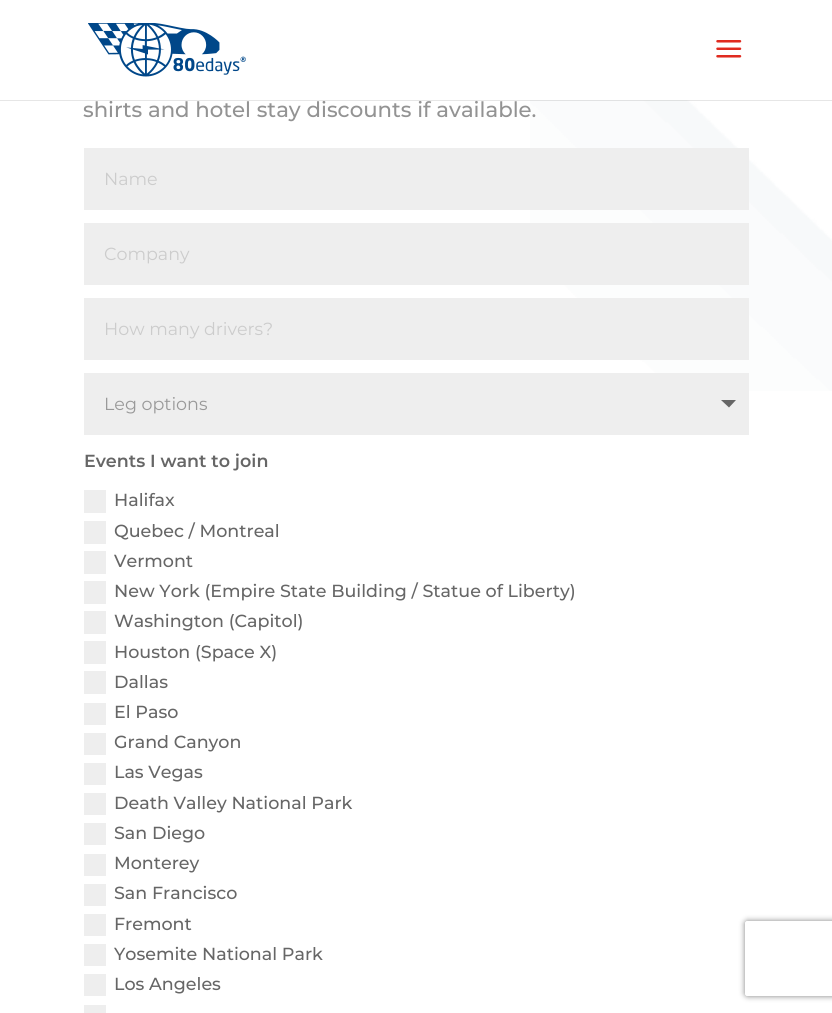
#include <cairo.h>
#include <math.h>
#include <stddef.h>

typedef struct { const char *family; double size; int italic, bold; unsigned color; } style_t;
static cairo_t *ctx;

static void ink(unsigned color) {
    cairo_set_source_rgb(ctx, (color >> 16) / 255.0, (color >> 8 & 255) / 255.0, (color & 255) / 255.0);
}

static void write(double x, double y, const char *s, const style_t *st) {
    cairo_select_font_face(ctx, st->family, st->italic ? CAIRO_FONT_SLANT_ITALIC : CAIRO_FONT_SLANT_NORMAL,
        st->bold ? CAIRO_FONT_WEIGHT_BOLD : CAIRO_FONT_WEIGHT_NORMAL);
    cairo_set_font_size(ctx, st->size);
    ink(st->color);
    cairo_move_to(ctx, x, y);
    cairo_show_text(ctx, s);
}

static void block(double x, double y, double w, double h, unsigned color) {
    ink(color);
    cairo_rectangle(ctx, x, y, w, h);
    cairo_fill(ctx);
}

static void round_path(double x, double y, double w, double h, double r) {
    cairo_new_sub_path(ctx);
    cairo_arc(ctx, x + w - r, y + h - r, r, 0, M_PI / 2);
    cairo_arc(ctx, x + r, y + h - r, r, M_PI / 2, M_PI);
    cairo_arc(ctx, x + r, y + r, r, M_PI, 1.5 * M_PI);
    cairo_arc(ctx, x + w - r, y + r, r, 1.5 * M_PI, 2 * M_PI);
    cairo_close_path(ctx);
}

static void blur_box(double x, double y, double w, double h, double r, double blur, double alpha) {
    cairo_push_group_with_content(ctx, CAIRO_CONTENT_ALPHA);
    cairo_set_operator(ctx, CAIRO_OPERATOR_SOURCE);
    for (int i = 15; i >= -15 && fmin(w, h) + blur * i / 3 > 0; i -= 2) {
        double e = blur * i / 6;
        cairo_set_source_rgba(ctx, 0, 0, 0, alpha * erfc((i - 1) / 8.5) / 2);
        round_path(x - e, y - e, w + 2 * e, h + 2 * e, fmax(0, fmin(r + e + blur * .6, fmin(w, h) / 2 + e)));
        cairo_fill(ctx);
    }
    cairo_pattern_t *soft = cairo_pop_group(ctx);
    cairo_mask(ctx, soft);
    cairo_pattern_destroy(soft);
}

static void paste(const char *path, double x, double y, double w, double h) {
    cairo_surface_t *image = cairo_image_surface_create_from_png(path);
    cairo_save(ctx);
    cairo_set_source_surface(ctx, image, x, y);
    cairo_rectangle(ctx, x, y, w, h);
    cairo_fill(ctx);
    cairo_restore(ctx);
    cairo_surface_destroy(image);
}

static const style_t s1 = {"Montserrat Medium", 21.25, 0, 0, 0x939393};
static const style_t s2 = {"Montserrat", 17.5, 0, 0, 0xcccccc};
static const style_t s3 = {"Montserrat", 17.5, 0, 0, 0x999999};
static const style_t s4 = {"Montserrat SemiBold", 17.5, 0, 0, 0x666666};
static const style_t s5 = {"Montserrat Medium", 17.5, 0, 0, 0x666666};

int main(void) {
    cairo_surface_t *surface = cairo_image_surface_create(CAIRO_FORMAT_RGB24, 832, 1013);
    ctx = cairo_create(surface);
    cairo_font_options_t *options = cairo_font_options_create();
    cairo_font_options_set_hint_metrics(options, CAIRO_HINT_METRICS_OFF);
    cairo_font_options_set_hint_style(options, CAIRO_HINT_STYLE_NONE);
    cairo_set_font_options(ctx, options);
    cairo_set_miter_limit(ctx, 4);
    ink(0xffffff);
    cairo_paint(ctx);
    paste("pic3.png", 530, 100, 302, 291);
    cairo_set_source_rgba(ctx, 0, 0, 0, 0.1);
    cairo_new_path(ctx);
    cairo_move_to(ctx, 0, 100);
    cairo_line_to(ctx, 0, 101);
    cairo_line_to(ctx, 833, 101);
    cairo_line_to(ctx, 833, 1);
    cairo_line_to(ctx, 832, 1);
    cairo_line_to(ctx, 832, 100);
    cairo_close_path(ctx);
    cairo_fill(ctx);
    paste("pic1.png", 88, 23, 158, 54);
    paste("pic2.png", 716, 40, 26, 18);
    write(83, 117, "shirts and hotel stay discounts if available.", &s1);
    block(84, 148, 665, 62, 0xeeeeee);
    write(104, 185, "Name", &s2);
    block(84, 223, 665, 62, 0xeeeeee);
    write(104, 260, "Company", &s2);
    block(84, 298, 665, 62, 0xeeeeee);
    write(104, 335, "How many drivers?", &s2);
    block(84, 373, 665, 62, 0xeeeeee);
    write(104, 410, "Leg options", &s3);
    ink(0x666666);
    cairo_new_path(ctx);
    cairo_move_to(ctx, 721, 400);
    cairo_line_to(ctx, 736, 400);
    cairo_line_to(ctx, 729, 407.5);
    cairo_close_path(ctx);
    cairo_fill(ctx);
    write(84, 467, "Events I want to join", &s4);
    block(84, 490, 22, 23, 0xeeeeee);
    write(114, 506, "Halifax", &s5);
    block(84, 521, 22, 23, 0xeeeeee);
    write(114, 537, "Quebec / Montreal", &s5);
    block(84, 551, 22, 23, 0xeeeeee);
    write(114, 567, "Vermont", &s5);
    block(84, 581, 22, 23, 0xeeeeee);
    write(114, 597, "New York (Empire State Building / Statue of Liberty)", &s5);
    block(84, 611, 22, 23, 0xeeeeee);
    write(114, 627, "Washington (Capitol)", &s5);
    block(84, 641, 22, 23, 0xeeeeee);
    write(114, 658, "Houston (Space X)", &s5);
    block(84, 671, 22, 23, 0xeeeeee);
    write(114, 688, "Dallas", &s5);
    block(84, 703, 22, 22, 0xeeeeee);
    write(114, 718, "El Paso", &s5);
    block(84, 733, 22, 22, 0xeeeeee);
    write(114, 748, "Grand Canyon", &s5);
    block(84, 763, 22, 22, 0xeeeeee);
    write(114, 778, "Las Vegas", &s5);
    block(84, 793, 22, 22, 0xeeeeee);
    write(114, 809, "Death Valley National Park", &s5);
    block(84, 823, 22, 22, 0xeeeeee);
    write(114, 839, "San Diego", &s5);
    block(84, 854, 22, 22, 0xeeeeee);
    write(114, 869, "Monterey", &s5);
    block(84, 884, 22, 22, 0xeeeeee);
    write(114, 899, "San Francisco", &s5);
    block(84, 914, 22, 22, 0xeeeeee);
    write(114, 930, "Fremont", &s5);
    block(84, 944, 22, 22, 0xeeeeee);
    write(114, 960, "Yosemite National Park", &s5);
    block(84, 974, 22, 22, 0xeeeeee);
    write(114, 990, "Los Angeles", &s5);
    block(84, 1005, 22, 8, 0xeeeeee);
    cairo_save(ctx);
    cairo_set_fill_rule(ctx, CAIRO_FILL_RULE_EVEN_ODD);
    cairo_new_path(ctx);
    cairo_move_to(ctx, 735, 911);
    cairo_line_to(ctx, 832, 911);
    cairo_line_to(ctx, 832, 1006);
    cairo_line_to(ctx, 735, 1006);
    cairo_close_path(ctx);
    cairo_move_to(ctx, 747.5, 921);
    cairo_line_to(ctx, 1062.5, 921);
    cairo_curve_to(ctx, 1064, 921, 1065, 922, 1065, 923.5);
    cairo_line_to(ctx, 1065, 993.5);
    cairo_curve_to(ctx, 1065, 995, 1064, 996, 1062.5, 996);
    cairo_line_to(ctx, 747.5, 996);
    cairo_curve_to(ctx, 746, 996, 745, 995, 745, 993.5);
    cairo_line_to(ctx, 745, 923.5);
    cairo_curve_to(ctx, 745, 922, 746, 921, 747.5, 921);
    cairo_close_path(ctx);
    cairo_clip(ctx);
    ink(0x808080);
    blur_box(745, 921, 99, 75, 2.5, 3, 1);
    cairo_restore(ctx);
    cairo_surface_write_to_png(surface, "screenshot.png");
    cairo_font_options_destroy(options);
    cairo_destroy(ctx);
    cairo_surface_destroy(surface);
    return 0;
}
